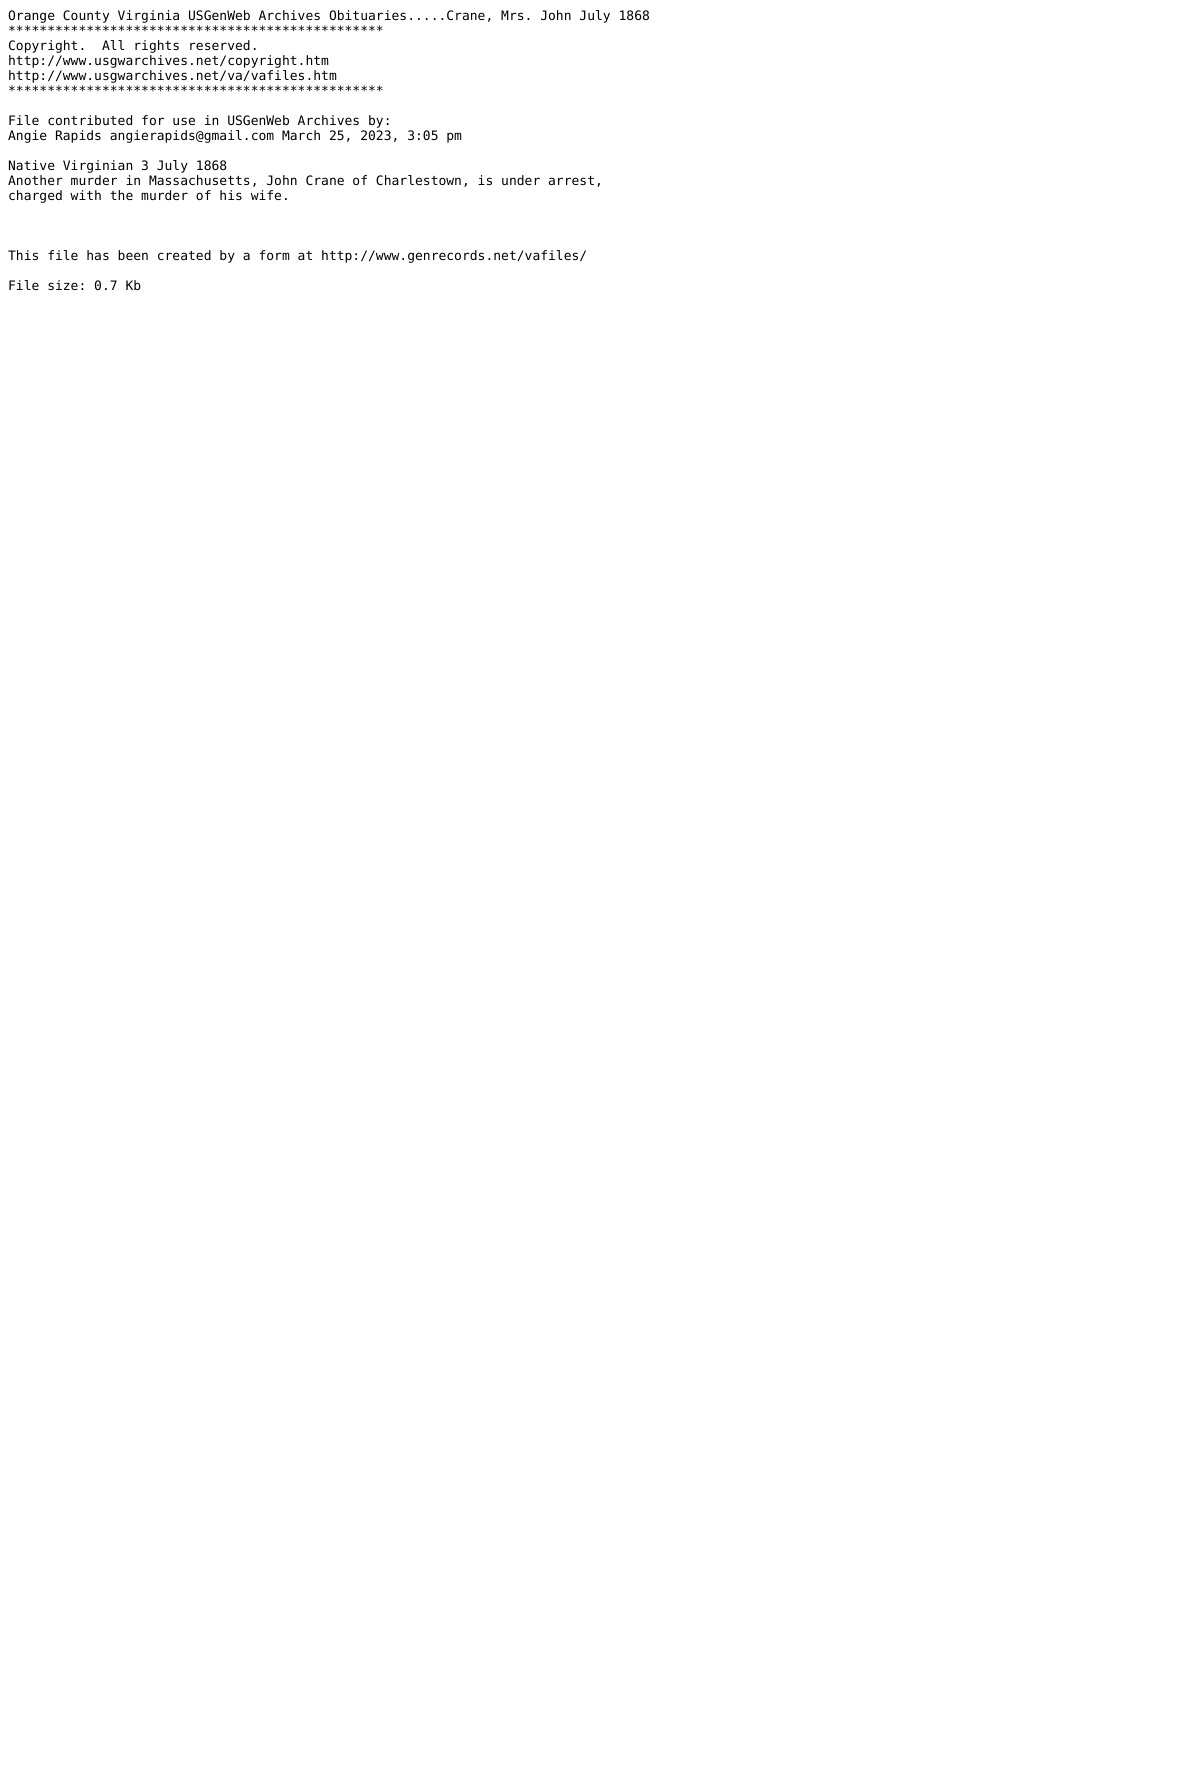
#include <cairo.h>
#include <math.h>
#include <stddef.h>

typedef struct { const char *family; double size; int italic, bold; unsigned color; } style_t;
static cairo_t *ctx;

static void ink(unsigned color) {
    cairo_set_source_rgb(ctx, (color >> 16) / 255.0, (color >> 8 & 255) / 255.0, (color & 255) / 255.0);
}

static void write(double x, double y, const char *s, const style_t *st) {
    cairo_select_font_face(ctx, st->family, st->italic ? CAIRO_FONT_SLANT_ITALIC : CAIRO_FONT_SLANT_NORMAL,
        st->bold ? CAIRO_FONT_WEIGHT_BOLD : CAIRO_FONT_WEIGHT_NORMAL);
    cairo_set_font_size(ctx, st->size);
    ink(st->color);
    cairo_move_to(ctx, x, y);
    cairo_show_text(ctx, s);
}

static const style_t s1 = {"DejaVu Sans Mono", 13, 0, 0, 0x000000};

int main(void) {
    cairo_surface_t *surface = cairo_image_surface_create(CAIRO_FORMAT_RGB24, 1181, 1790);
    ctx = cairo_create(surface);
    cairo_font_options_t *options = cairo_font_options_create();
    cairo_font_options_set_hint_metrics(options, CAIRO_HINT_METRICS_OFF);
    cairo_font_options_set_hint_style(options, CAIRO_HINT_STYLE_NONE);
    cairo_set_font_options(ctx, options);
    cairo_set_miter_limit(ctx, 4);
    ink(0xffffff);
    cairo_paint(ctx);
    write(8, 20, "Orange County Virginia USGenWeb Archives Obituaries.....Crane, Mrs. John July 1868", &s1);
    write(8, 35, "************************************************", &s1);
    write(8, 50, "Copyright.  All rights reserved.", &s1);
    write(8, 65, "http://www.usgwarchives.net/copyright.htm", &s1);
    write(8, 80, "http://www.usgwarchives.net/va/vafiles.htm", &s1);
    write(8, 95, "************************************************", &s1);
    write(8, 125, "File contributed for use in USGenWeb Archives by:", &s1);
    write(8, 140, "Angie Rapids angierapids@gmail.com March 25, 2023, 3:05 pm", &s1);
    write(8, 170, "Native Virginian 3 July 1868", &s1);
    write(8, 185, "Another murder in Massachusetts, John Crane of Charlestown, is under arrest,", &s1);
    write(8, 200, "charged with the murder of his wife.", &s1);
    write(8, 260, "This file has been created by a form at http://www.genrecords.net/vafiles/", &s1);
    write(8, 290, "File size: 0.7 Kb", &s1);
    cairo_surface_write_to_png(surface, "screenshot.png");
    cairo_font_options_destroy(options);
    cairo_destroy(ctx);
    cairo_surface_destroy(surface);
    return 0;
}
